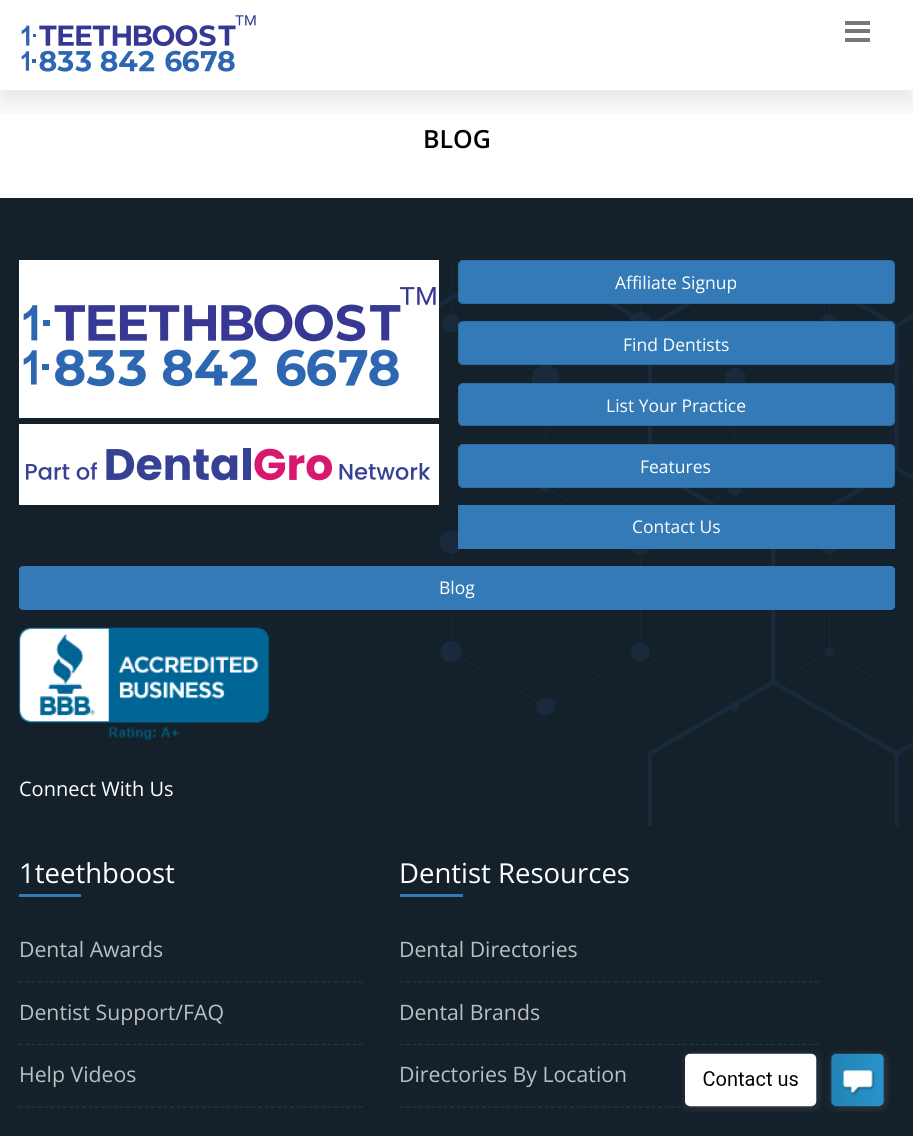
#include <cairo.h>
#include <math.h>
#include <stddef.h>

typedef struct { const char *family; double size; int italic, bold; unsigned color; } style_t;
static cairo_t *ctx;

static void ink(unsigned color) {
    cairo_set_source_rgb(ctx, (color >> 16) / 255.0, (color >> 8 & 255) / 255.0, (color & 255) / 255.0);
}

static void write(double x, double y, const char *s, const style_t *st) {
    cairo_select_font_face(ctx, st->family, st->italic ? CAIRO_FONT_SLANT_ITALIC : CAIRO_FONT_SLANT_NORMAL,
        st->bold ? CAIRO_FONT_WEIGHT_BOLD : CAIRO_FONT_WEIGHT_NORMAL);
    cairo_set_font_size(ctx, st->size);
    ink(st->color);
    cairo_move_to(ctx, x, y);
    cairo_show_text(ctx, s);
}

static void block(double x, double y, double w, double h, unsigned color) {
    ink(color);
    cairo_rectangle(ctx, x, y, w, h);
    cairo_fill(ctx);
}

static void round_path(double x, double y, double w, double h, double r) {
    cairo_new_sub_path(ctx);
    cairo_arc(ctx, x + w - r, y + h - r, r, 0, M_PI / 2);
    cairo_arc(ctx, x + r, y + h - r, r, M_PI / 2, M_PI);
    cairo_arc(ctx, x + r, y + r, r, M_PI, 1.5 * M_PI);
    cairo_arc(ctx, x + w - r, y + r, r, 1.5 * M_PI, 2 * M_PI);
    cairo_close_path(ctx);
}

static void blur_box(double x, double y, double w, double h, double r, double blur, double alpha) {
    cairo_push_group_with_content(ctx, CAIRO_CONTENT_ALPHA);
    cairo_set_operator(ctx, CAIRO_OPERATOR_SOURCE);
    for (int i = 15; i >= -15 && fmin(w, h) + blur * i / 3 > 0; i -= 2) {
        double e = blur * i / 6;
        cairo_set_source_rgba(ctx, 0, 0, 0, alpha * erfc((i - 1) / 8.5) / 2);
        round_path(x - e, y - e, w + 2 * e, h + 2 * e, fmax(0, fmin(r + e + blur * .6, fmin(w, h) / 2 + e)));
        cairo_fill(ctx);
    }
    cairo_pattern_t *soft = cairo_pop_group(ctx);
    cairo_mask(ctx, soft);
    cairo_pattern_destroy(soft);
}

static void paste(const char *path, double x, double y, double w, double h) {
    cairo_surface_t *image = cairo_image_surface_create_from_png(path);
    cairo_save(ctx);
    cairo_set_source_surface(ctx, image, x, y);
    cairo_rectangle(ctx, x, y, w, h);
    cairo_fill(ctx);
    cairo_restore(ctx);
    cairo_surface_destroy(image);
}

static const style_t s1 = {"Open Sans SemiBold", 25, 0, 0, 0x000000};
static const style_t s2 = {"Open Sans", 17.5, 0, 0, 0xffffff};
static const style_t s3 = {"Open Sans", 20, 0, 0, 0xffffff};
static const style_t s4 = {"Open Sans", 27.5, 0, 0, 0xffffff};
static const style_t s5 = {"Open Sans", 21.25, 0, 0, 0xbbbfc1};

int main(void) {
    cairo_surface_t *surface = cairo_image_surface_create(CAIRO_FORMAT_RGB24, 913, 1136);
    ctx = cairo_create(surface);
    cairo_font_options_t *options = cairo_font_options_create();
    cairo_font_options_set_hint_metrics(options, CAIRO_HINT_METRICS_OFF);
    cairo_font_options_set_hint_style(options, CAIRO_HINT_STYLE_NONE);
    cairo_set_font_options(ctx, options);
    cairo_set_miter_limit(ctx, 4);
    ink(0xffffff);
    cairo_paint(ctx);
    cairo_save(ctx);
    cairo_rectangle(ctx, 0, 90, 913, 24);
    cairo_clip(ctx);
    ink(0x000000);
    blur_box(0, 13, 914, 90, 0, 12.5, 0.1);
    cairo_restore(ctx);
    paste("pic1.png", 21, 15, 235, 57);
    block(845, 21, 25, 4, 0x777777);
    block(845, 29, 25, 4, 0x777777);
    block(845, 38, 25, 4, 0x777777);
    write(423, 148, "BLOG", &s1);
    block(0, 198, 913, 938, 0x14212b);
    paste("pic2.png", 439, 262, 474, 564);
    block(19, 260, 420, 158, 0xffffff);
    paste("pic3.png", 23, 287, 413, 100);
    block(19, 424, 420, 81, 0xffffff);
    paste("pic4.png", 25, 448, 406, 33);
    ink(0x337ab7);
    round_path(458.5, 260.5, 436, 43, 4.5);
    cairo_fill_preserve(ctx);
    ink(0x2e6da4);
    cairo_set_line_width(ctx, 1);
    cairo_stroke(ctx);
    write(615, 289, "Affiliate Signup", &s2);
    ink(0x337ab7);
    round_path(458.5, 321.5, 436, 43, 4.5);
    cairo_fill_preserve(ctx);
    ink(0x2e6da4);
    cairo_stroke(ctx);
    write(623, 351, "Find Dentists", &s2);
    ink(0x337ab7);
    round_path(458.5, 383.5, 436, 42, 4.5);
    cairo_fill_preserve(ctx);
    ink(0x2e6da4);
    cairo_stroke(ctx);
    write(606, 412, "List Your Practice", &s2);
    ink(0x337ab7);
    round_path(458.5, 444.5, 436, 43, 4.5);
    cairo_fill_preserve(ctx);
    ink(0x2e6da4);
    cairo_stroke(ctx);
    write(640, 473, "Features", &s2);
    block(458, 505, 437, 44, 0x337ab7);
    write(632, 533, "Contact Us", &s2);
    ink(0x337ab7);
    round_path(19.5, 566.5, 875, 43, 3.5);
    cairo_fill_preserve(ctx);
    cairo_stroke(ctx);
    write(439, 594, "Blog", &s2);
    paste("pic5.png", 18, 627, 251, 113);
    write(19, 796, "Connect With Us", &s3);
    write(19, 883, "1teethboost", &s4);
    block(19, 894, 62, 3, 0x337ab7);
    cairo_new_path(ctx);
    cairo_move_to(ctx, 19, 982);
    cairo_line_to(ctx, 362.5, 982);
    ink(0x333333);
    cairo_set_line_width(ctx, 1.2);
    cairo_set_dash(ctx, (double[]){3.75, 2.55}, 2, 0);
    cairo_stroke(ctx);
    write(19, 957, "Dental Awards", &s5);
    cairo_new_path(ctx);
    cairo_move_to(ctx, 19, 1044.5);
    cairo_line_to(ctx, 362.5, 1044.5);
    ink(0x333333);
    cairo_stroke(ctx);
    write(19, 1020, "Dentist Support/FAQ", &s5);
    cairo_new_path(ctx);
    cairo_move_to(ctx, 19, 1107);
    cairo_line_to(ctx, 362.5, 1107);
    ink(0x333333);
    cairo_stroke(ctx);
    write(19, 1082, "Help Videos", &s5);
    write(399, 883, "Dentist Resources", &s4);
    block(400, 894, 63, 3, 0x337ab7);
    cairo_new_path(ctx);
    cairo_move_to(ctx, 400, 982);
    cairo_line_to(ctx, 819, 982);
    ink(0x333333);
    cairo_set_dash(ctx, (double[]){3.75, 2.54}, 2, 0);
    cairo_stroke(ctx);
    write(399, 957, "Dental Directories", &s5);
    cairo_new_path(ctx);
    cairo_move_to(ctx, 400, 1044.5);
    cairo_line_to(ctx, 819, 1044.5);
    ink(0x333333);
    cairo_stroke(ctx);
    write(399, 1020, "Dental Brands", &s5);
    cairo_new_path(ctx);
    cairo_move_to(ctx, 400, 1107);
    cairo_line_to(ctx, 819, 1107);
    ink(0x333333);
    cairo_stroke(ctx);
    write(399, 1082, "Directories By Location", &s5);
    paste("pic6.png", 681, 1050, 209, 63);
    cairo_surface_write_to_png(surface, "screenshot.png");
    cairo_font_options_destroy(options);
    cairo_destroy(ctx);
    cairo_surface_destroy(surface);
    return 0;
}
